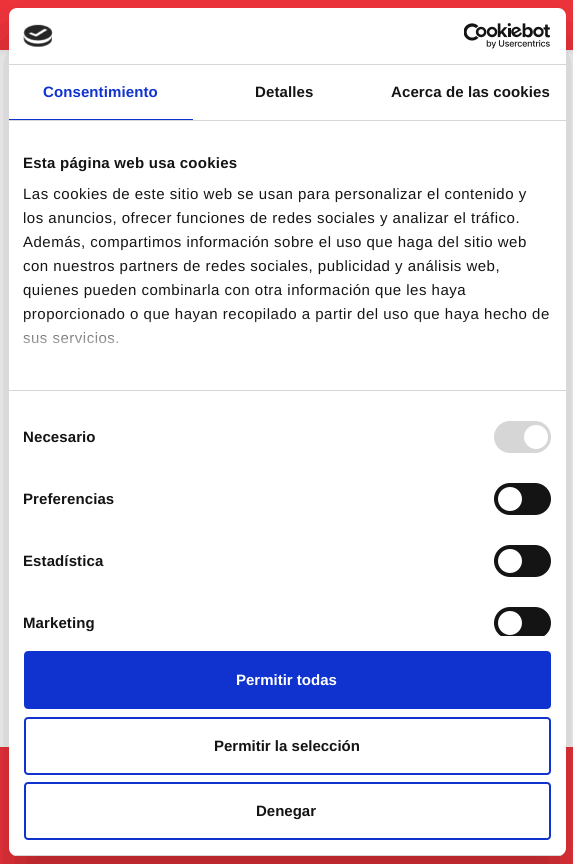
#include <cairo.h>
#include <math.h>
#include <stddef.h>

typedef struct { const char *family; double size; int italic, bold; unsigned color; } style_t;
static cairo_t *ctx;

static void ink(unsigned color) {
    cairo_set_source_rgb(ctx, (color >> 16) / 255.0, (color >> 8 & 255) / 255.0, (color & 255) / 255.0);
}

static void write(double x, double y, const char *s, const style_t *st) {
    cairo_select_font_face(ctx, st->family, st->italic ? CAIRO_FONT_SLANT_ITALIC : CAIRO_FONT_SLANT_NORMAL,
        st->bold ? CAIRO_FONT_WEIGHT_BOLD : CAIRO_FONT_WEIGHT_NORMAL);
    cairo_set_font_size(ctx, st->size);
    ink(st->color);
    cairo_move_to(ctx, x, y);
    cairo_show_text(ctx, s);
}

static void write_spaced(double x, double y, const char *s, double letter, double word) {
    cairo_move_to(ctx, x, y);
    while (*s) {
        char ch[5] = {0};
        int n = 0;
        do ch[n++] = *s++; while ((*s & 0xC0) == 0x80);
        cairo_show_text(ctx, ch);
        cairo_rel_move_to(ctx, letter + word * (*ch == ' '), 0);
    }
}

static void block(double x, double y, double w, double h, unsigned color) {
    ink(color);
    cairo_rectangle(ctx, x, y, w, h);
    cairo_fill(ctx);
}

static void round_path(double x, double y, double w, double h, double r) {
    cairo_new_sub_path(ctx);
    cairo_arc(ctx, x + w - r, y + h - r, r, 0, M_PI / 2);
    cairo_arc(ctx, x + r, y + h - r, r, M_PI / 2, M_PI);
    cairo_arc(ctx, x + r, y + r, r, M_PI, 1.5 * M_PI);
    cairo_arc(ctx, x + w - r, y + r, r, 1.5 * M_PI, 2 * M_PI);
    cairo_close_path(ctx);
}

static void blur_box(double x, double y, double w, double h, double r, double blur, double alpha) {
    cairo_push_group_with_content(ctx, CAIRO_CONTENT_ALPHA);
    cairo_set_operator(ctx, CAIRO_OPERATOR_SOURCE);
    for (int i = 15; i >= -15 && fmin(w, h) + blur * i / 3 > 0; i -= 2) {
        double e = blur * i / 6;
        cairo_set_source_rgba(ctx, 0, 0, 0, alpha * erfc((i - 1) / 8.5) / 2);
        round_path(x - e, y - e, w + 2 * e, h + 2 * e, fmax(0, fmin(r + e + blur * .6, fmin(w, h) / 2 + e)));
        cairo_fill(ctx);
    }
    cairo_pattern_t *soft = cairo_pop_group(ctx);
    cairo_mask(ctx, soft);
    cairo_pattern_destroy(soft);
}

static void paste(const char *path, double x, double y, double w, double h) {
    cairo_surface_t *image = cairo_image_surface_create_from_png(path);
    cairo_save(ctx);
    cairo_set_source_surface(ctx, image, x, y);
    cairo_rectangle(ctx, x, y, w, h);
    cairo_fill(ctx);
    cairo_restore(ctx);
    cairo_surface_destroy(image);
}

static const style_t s1 = {"Liberation Sans", 15, 0, 1, 0xffffff};
static const style_t s2 = {"Liberation Sans", 15, 0, 1, 0x141414};

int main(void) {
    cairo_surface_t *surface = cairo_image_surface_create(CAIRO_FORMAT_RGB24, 573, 864);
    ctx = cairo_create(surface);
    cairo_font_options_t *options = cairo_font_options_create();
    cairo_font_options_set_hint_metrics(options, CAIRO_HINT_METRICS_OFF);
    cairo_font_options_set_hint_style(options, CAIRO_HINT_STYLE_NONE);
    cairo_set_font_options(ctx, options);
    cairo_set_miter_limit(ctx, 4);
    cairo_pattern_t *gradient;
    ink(0xffffff);
    cairo_paint(ctx);
    ink(0x000000);
    blur_box(0, 3, 573, 50, 0, 1.5, 0.05);
    block(0, 0, 573, 50, 0xf4343c);
    block(0, 747, 573, 117, 0xf4343c);
    ink(0x000000);
    blur_box(9, 40, 557, 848, 8, 34, 0.3);
    ink(0xffffff);
    round_path(9, 8, 557, 848, 8);
    cairo_fill(ctx);
    block(9, 64, 557, 1, 0xd6d6d6);
    paste("pic1.png", 23, 24, 30, 23);
    paste("pic2.png", 464, 23, 87, 26);
    block(9, 120, 557, 1, 0xd6d6d6);
    block(9, 119, 184, 1, 0x1032cf);
    cairo_select_font_face(ctx, "Liberation Sans", CAIRO_FONT_SLANT_NORMAL, CAIRO_FONT_WEIGHT_BOLD);
    cairo_set_font_size(ctx, 15);
    write_spaced(43, 97, "Consentimiento", 0.1, 0);
    ink(0x141414);
    write_spaced(255, 97, "Detalles", 0.1, 0);
    write_spaced(391, 97, "Acerca de las cookies", 0.1, 0);
    block(9, 390, 557, 1, 0xd6d6d6);
    ink(0x141414);
    write_spaced(23, 168, "Esta página web usa cookies", 0.25, 0);
    cairo_select_font_face(ctx, "Liberation Sans", CAIRO_FONT_SLANT_NORMAL, CAIRO_FONT_WEIGHT_NORMAL);
    write_spaced(23, 199, "Las cookies de este sitio web se usan para personalizar el contenido y", 0.5, 0);
    write_spaced(23, 223, "los anuncios, ofrecer funciones de redes sociales y analizar el tráfico.", 0.5, 0);
    write_spaced(23, 247, "Además, compartimos información sobre el uso que haga del sitio web", 0.5, 0);
    write_spaced(23, 271, "con nuestros partners de redes sociales, publicidad y análisis web,", 0.5, 0);
    write_spaced(23, 295, "quienes pueden combinarla con otra información que les haya", 0.5, 0);
    write_spaced(23, 319, "proporcionado o que hayan recopilado a partir del uso que haya hecho de", 0.5, 0);
    write_spaced(23, 343, "sus servicios.", 0.5, 0);
    gradient = cairo_pattern_create_linear(281, 390, 281, 315);
    cairo_pattern_add_color_stop_rgba(gradient, 0, 1, 1, 1, 1);
    cairo_pattern_add_color_stop_rgba(gradient, 0.5, 1, 1, 1, 0.8);
    cairo_pattern_add_color_stop_rgba(gradient, 1, 1, 1, 1, 0);
    cairo_set_source(ctx, gradient);
    cairo_pattern_destroy(gradient);
    cairo_rectangle(ctx, 23, 316, 525, 28);
    cairo_fill(ctx);
    cairo_select_font_face(ctx, "Liberation Sans", CAIRO_FONT_SLANT_NORMAL, CAIRO_FONT_WEIGHT_BOLD);
    ink(0x141414);
    write_spaced(23, 442, "Necesario", 0.1, 0);
    ink(0xd6d6d6);
    round_path(494, 421, 57, 32, 16);
    cairo_fill(ctx);
    ink(0xffffff);
    cairo_arc(ctx, 536, 437, 12, 0, 2 * M_PI);
    cairo_fill(ctx);
    ink(0x141414);
    write_spaced(23, 504, "Preferencias", 0.1, 0);
    round_path(494, 483, 57, 32, 16);
    cairo_fill(ctx);
    ink(0xffffff);
    cairo_arc(ctx, 510, 499, 12, 0, 2 * M_PI);
    cairo_fill(ctx);
    ink(0x141414);
    write_spaced(23, 566, "Estadística", 0.1, 0);
    round_path(494, 545, 57, 32, 16);
    cairo_fill(ctx);
    ink(0xffffff);
    cairo_arc(ctx, 510, 561, 12, 0, 2 * M_PI);
    cairo_fill(ctx);
    ink(0x141414);
    write_spaced(23, 628, "Marketing", 0.1, 0);
    cairo_save(ctx);
    cairo_rectangle(ctx, 9, 121, 557, 515);
    cairo_clip(ctx);
    round_path(494, 607, 57, 32, 16);
    cairo_fill(ctx);
    cairo_restore(ctx);
    ink(0xffffff);
    cairo_arc(ctx, 510, 623, 12, 0, 2 * M_PI);
    cairo_fill(ctx);
    cairo_save(ctx);
    round_path(9, 8, 557, 848, 8);
    cairo_clip(ctx);
    block(9, 855, 557, 1, 0xd6d6d6);
    cairo_restore(ctx);
    ink(0x1032cf);
    round_path(25, 652, 525, 56, 3);
    cairo_fill_preserve(ctx);
    cairo_stroke(ctx);
    write(236, 685, "Permitir todas", &s1);
    round_path(25, 718, 525, 56, 3);
    ink(0x1032cf);
    cairo_stroke(ctx);
    write(214, 751, "Permitir la selección", &s2);
    round_path(25, 783, 525, 56, 3);
    ink(0x1032cf);
    cairo_stroke(ctx);
    write(256, 816, "Denegar", &s2);
    cairo_surface_write_to_png(surface, "screenshot.png");
    cairo_font_options_destroy(options);
    cairo_destroy(ctx);
    cairo_surface_destroy(surface);
    return 0;
}
